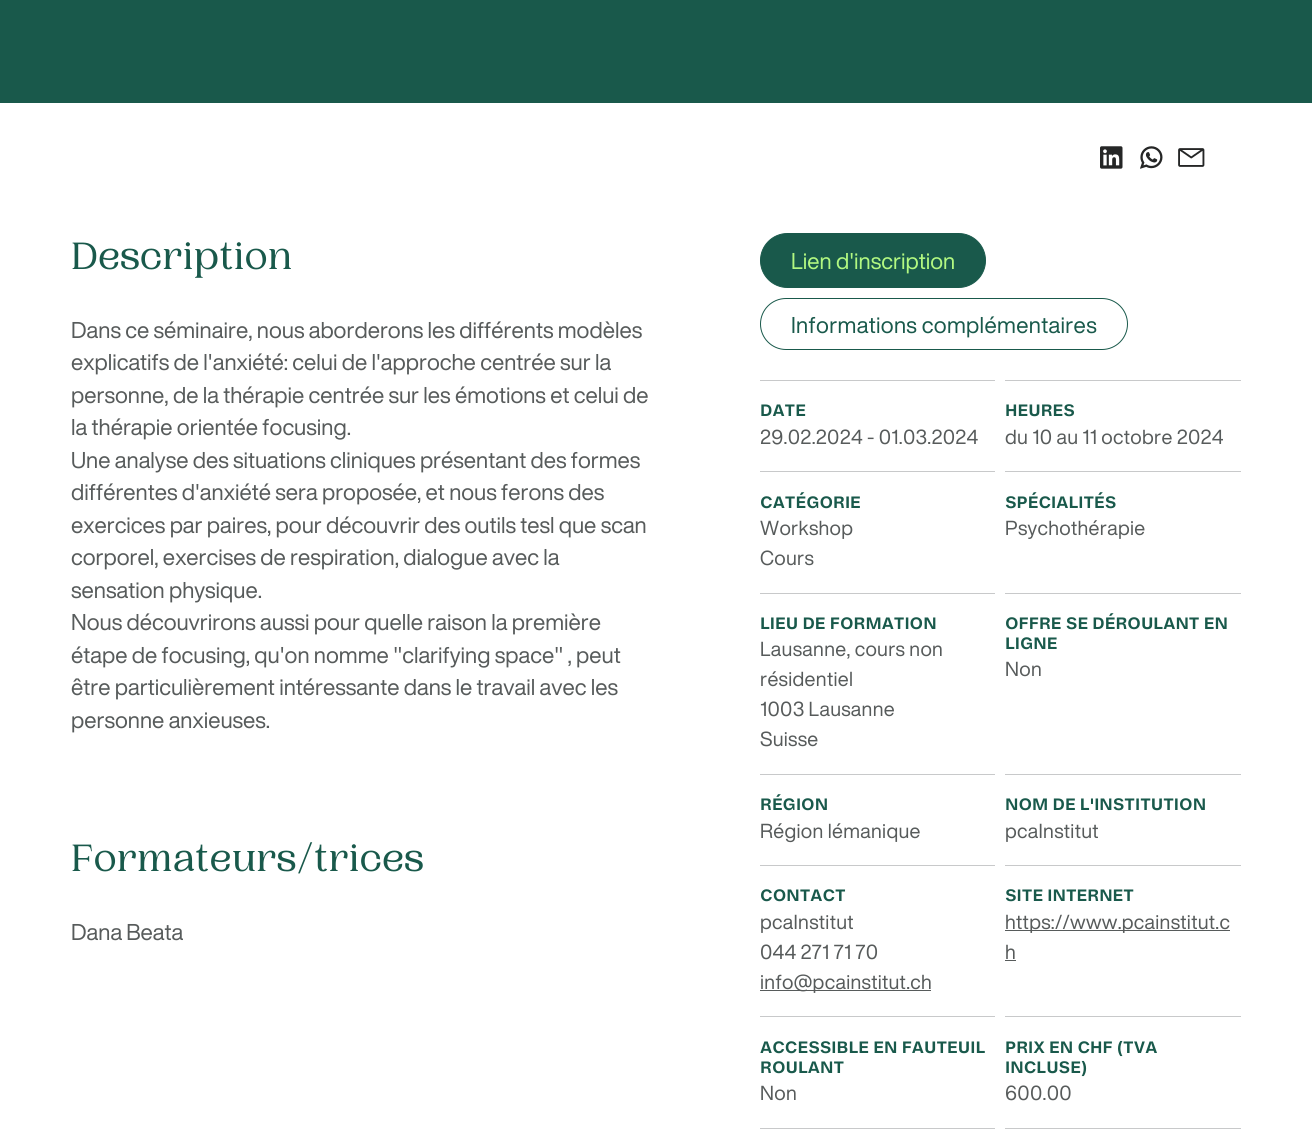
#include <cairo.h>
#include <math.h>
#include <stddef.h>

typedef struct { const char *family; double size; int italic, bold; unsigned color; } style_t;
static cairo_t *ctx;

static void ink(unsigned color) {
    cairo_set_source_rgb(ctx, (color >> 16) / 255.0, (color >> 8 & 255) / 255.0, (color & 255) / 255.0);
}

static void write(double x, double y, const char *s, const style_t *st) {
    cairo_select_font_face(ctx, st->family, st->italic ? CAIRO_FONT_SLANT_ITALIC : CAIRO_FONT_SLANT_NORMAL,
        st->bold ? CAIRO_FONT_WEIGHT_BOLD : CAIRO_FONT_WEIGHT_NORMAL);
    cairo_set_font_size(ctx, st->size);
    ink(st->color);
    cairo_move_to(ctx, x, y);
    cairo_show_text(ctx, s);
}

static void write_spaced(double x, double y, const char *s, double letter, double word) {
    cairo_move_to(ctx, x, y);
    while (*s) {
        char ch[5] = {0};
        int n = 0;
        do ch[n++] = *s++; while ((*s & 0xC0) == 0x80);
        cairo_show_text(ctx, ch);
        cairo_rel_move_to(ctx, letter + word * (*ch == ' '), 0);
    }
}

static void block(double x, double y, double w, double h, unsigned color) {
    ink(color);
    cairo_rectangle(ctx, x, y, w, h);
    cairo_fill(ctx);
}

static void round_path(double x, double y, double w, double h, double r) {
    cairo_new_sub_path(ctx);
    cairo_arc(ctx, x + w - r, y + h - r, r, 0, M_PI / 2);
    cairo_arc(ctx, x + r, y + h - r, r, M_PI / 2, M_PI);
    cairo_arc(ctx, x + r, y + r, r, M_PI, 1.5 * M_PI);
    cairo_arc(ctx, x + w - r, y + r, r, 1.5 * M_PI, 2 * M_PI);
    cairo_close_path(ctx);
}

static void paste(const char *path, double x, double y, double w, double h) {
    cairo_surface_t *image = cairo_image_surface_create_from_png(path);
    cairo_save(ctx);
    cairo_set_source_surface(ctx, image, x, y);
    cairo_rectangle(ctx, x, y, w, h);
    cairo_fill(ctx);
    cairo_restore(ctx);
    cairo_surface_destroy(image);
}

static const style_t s1 = {"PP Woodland", 40, 0, 0, 0x19594b};
static const style_t s2 = {"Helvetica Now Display", 22.5, 0, 0, 0x575b5b};
static const style_t s3 = {"Helvetica Now Display", 22.5, 0, 0, 0xb2f881};
static const style_t s4 = {"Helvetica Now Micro", 15, 0, 1, 0x19594b};

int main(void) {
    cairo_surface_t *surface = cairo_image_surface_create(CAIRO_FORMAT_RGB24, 1312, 1138);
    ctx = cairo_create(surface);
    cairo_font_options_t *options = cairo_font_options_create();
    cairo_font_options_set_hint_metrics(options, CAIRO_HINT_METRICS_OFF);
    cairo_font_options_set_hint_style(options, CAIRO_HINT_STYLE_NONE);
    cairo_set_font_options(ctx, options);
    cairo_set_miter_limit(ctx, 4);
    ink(0xffffff);
    cairo_paint(ctx);
    block(0, 0, 1312, 103, 0x19594b);
    paste("pic1.png", 1100, 146, 23, 23);
    paste("pic2.png", 1140, 146, 23, 23);
    paste("pic3.png", 1178, 148, 27, 19);
    write(71, 269, "Description", &s1);
    write(71, 338, "Dans ce séminaire, nous aborderons les différents modèles", &s2);
    write(71, 370, "explicatifs de l'anxiété: celui de l'approche centrée sur la", &s2);
    write(71, 403, "personne, de la thérapie centrée sur les émotions et celui de", &s2);
    write(71, 435, "la thérapie orientée focusing.", &s2);
    write(71, 468, "Une analyse des situations cliniques présentant des formes", &s2);
    write(71, 500, "différentes d'anxiété sera proposée, et nous ferons des", &s2);
    write(71, 533, "exercices par paires, pour découvrir des outils tesl que scan", &s2);
    write(71, 565, "corporel, exercises de respiration, dialogue avec la", &s2);
    write(71, 598, "sensation physique.", &s2);
    write(71, 630, "Nous découvrirons aussi pour quelle raison la première", &s2);
    write(71, 663, "étape de focusing, qu'on nomme \"clarifying space\" , peut", &s2);
    write(71, 695, "être particulièrement intéressante dans le travail avec les", &s2);
    write(71, 728, "personne anxieuses.", &s2);
    write(71, 871, "Formateurs/trices", &s1);
    write(71, 940, "Dana Beata", &s2);
    ink(0x19594b);
    round_path(760.5, 233.5, 225, 54, 27);
    cairo_fill_preserve(ctx);
    cairo_set_line_width(ctx, 1);
    cairo_stroke(ctx);
    write(791, 269, "Lien d'inscription", &s3);
    round_path(760.5, 298.5, 367, 51, 25.5);
    ink(0x19594b);
    cairo_stroke(ctx);
    write_spaced(791, 333, "Informations complémentaires", 0.3, 0);
    block(760, 380, 235, 1, 0xc8c9ca);
    write(760, 416, "DATE", &s4);
    cairo_select_font_face(ctx, "Helvetica Now Display", CAIRO_FONT_SLANT_NORMAL, CAIRO_FONT_WEIGHT_NORMAL);
    cairo_set_font_size(ctx, 20);
    ink(0x575b5b);
    write_spaced(760, 444, "29.02.2024 - 01.03.2024", 0.3, 0);
    block(1005, 380, 236, 1, 0xc8c9ca);
    write(1005, 416, "HEURES", &s4);
    cairo_select_font_face(ctx, "Helvetica Now Display", CAIRO_FONT_SLANT_NORMAL, CAIRO_FONT_WEIGHT_NORMAL);
    cairo_set_font_size(ctx, 20);
    ink(0x575b5b);
    write_spaced(1005, 444, "du 10 au 11 octobre 2024", 0.3, 0);
    block(760, 471, 235, 1, 0xc8c9ca);
    write(760, 508, "CATÉGORIE", &s4);
    cairo_select_font_face(ctx, "Helvetica Now Display", CAIRO_FONT_SLANT_NORMAL, CAIRO_FONT_WEIGHT_NORMAL);
    cairo_set_font_size(ctx, 20);
    ink(0x575b5b);
    write_spaced(760, 535, "Workshop", 0.3, 0);
    write_spaced(760, 565, "Cours", 0.3, 0);
    block(1005, 471, 236, 1, 0xc8c9ca);
    write(1005, 508, "SPÉCIALITÉS", &s4);
    cairo_select_font_face(ctx, "Helvetica Now Display", CAIRO_FONT_SLANT_NORMAL, CAIRO_FONT_WEIGHT_NORMAL);
    cairo_set_font_size(ctx, 20);
    ink(0x575b5b);
    write_spaced(1005, 535, "Psychothérapie", 0.3, 0);
    block(760, 593, 235, 1, 0xc8c9ca);
    write(760, 629, "LIEU DE FORMATION", &s4);
    cairo_select_font_face(ctx, "Helvetica Now Display", CAIRO_FONT_SLANT_NORMAL, CAIRO_FONT_WEIGHT_NORMAL);
    cairo_set_font_size(ctx, 20);
    ink(0x575b5b);
    write_spaced(760, 656, "Lausanne, cours non", 0.3, 0);
    write_spaced(760, 686, "résidentiel", 0.3, 0);
    write_spaced(760, 716, "1003 Lausanne", 0.3, 0);
    write_spaced(760, 746, "Suisse", 0.3, 0);
    block(1005, 593, 236, 1, 0xc8c9ca);
    write(1005, 629, "OFFRE SE DÉROULANT EN", &s4);
    write(1005, 649, "LIGNE", &s4);
    cairo_select_font_face(ctx, "Helvetica Now Display", CAIRO_FONT_SLANT_NORMAL, CAIRO_FONT_WEIGHT_NORMAL);
    cairo_set_font_size(ctx, 20);
    ink(0x575b5b);
    write_spaced(1005, 676, "Non", 0.3, 0);
    block(760, 774, 235, 1, 0xc8c9ca);
    write(760, 810, "RÉGION", &s4);
    cairo_select_font_face(ctx, "Helvetica Now Display", CAIRO_FONT_SLANT_NORMAL, CAIRO_FONT_WEIGHT_NORMAL);
    cairo_set_font_size(ctx, 20);
    ink(0x575b5b);
    write_spaced(760, 838, "Région lémanique", 0.3, 0);
    block(1005, 774, 236, 1, 0xc8c9ca);
    write(1005, 810, "NOM DE L'INSTITUTION", &s4);
    cairo_select_font_face(ctx, "Helvetica Now Display", CAIRO_FONT_SLANT_NORMAL, CAIRO_FONT_WEIGHT_NORMAL);
    cairo_set_font_size(ctx, 20);
    ink(0x575b5b);
    write_spaced(1005, 838, "pcaInstitut", 0.3, 0);
    block(760, 865, 235, 1, 0xc8c9ca);
    write(760, 901, "CONTACT", &s4);
    cairo_select_font_face(ctx, "Helvetica Now Display", CAIRO_FONT_SLANT_NORMAL, CAIRO_FONT_WEIGHT_NORMAL);
    cairo_set_font_size(ctx, 20);
    ink(0x575b5b);
    write_spaced(760, 929, "pcaInstitut", 0.3, 0);
    write_spaced(760, 959, "044 271 71 70", 0.3, 0);
    block(760, 990, 171, 1, 0x575b5b);
    write_spaced(760, 989, "info@pcainstitut.ch", 0.3, 0);
    block(1005, 865, 236, 1, 0xc8c9ca);
    write(1005, 901, "SITE INTERNET", &s4);
    block(1005, 930, 225, 1, 0x575b5b);
    cairo_select_font_face(ctx, "Helvetica Now Display", CAIRO_FONT_SLANT_NORMAL, CAIRO_FONT_WEIGHT_NORMAL);
    cairo_set_font_size(ctx, 20);
    write_spaced(1005, 929, "https://www.pcainstitut.c", 0.3, 0);
    write_spaced(1005, 959, "h", 0.3, 0);
    block(1005, 960, 11, 1, 0x575b5b);
    block(760, 1016, 235, 1, 0xc8c9ca);
    write(760, 1053, "ACCESSIBLE EN FAUTEUIL", &s4);
    write(760, 1073, "ROULANT", &s4);
    cairo_select_font_face(ctx, "Helvetica Now Display", CAIRO_FONT_SLANT_NORMAL, CAIRO_FONT_WEIGHT_NORMAL);
    cairo_set_font_size(ctx, 20);
    ink(0x575b5b);
    write_spaced(760, 1100, "Non", 0.3, 0);
    block(1005, 1016, 236, 1, 0xc8c9ca);
    write(1005, 1053, "PRIX EN CHF (TVA", &s4);
    write(1005, 1073, "INCLUSE)", &s4);
    cairo_select_font_face(ctx, "Helvetica Now Display", CAIRO_FONT_SLANT_NORMAL, CAIRO_FONT_WEIGHT_NORMAL);
    cairo_set_font_size(ctx, 20);
    ink(0x575b5b);
    write_spaced(1005, 1100, "600.00", 0.3, 0);
    block(760, 1128, 235, 1, 0xc8c9ca);
    block(1005, 1128, 236, 1, 0xc8c9ca);
    cairo_surface_write_to_png(surface, "screenshot.png");
    cairo_font_options_destroy(options);
    cairo_destroy(ctx);
    cairo_surface_destroy(surface);
    return 0;
}
